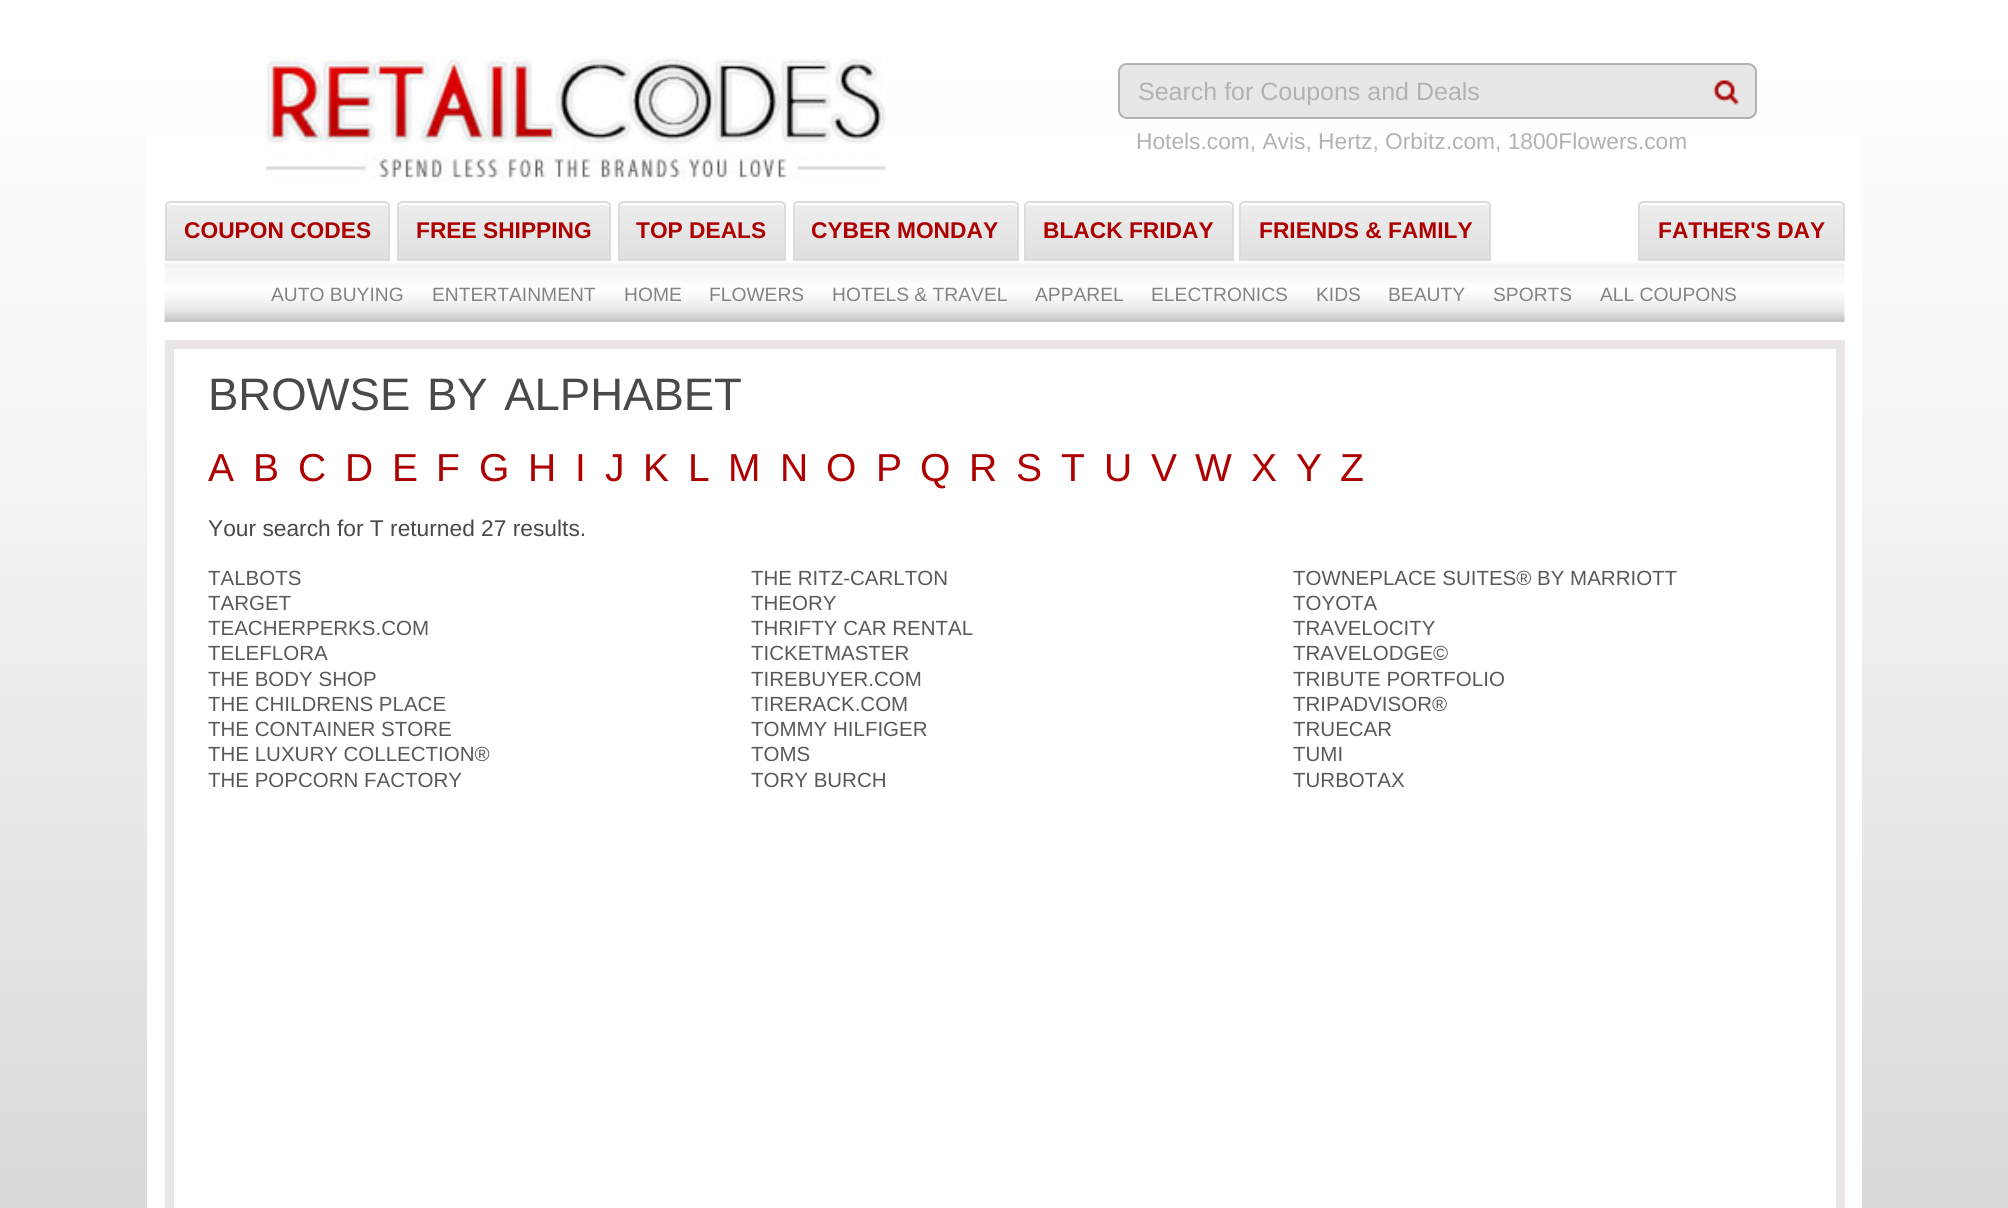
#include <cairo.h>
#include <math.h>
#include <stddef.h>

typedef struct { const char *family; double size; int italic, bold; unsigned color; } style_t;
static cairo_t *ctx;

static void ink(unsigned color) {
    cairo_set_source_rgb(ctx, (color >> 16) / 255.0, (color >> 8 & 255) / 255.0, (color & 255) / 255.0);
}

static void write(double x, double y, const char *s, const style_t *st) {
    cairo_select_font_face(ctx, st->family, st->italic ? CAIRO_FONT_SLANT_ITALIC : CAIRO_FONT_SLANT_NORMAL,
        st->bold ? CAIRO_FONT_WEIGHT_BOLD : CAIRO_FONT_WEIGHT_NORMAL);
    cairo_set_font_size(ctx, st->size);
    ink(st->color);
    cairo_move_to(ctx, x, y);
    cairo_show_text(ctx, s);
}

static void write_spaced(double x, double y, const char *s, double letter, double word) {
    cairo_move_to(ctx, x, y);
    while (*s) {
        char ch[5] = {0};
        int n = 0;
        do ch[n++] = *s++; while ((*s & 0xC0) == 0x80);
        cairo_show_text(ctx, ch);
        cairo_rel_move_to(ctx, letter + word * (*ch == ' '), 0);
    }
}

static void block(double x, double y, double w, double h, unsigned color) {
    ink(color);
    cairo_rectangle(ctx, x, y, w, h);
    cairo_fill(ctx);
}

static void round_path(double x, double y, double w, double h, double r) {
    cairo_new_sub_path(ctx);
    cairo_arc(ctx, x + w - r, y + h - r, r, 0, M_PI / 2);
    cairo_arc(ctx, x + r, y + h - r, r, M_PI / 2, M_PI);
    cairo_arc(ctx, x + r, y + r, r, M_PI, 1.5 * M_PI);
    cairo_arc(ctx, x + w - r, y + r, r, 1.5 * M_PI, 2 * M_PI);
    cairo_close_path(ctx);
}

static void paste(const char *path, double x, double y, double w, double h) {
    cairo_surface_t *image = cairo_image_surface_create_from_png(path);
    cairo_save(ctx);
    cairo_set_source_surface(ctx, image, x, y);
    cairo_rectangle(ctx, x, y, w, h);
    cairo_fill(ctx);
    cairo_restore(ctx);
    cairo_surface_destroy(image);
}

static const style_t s1 = {"Liberation Sans", 25, 0, 0, 0xb2b2b2};
static const style_t s2 = {"Liberation Sans", 22.75, 0, 0, 0xb2b2b2};
static const style_t s3 = {"Liberation Sans", 22.75, 0, 1, 0xad0101};
static const style_t s4 = {"Liberation Sans", 19.25, 0, 0, 0x838383};
static const style_t s5 = {"Liberation Sans", 39, 0, 0, 0xad0101};
static const style_t s6 = {"Liberation Sans", 22.75, 0, 0, 0x494949};
static const style_t s7 = {"Liberation Sans", 20.5, 0, 0, 0x595959};

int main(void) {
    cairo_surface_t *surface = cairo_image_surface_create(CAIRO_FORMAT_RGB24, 2008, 1208);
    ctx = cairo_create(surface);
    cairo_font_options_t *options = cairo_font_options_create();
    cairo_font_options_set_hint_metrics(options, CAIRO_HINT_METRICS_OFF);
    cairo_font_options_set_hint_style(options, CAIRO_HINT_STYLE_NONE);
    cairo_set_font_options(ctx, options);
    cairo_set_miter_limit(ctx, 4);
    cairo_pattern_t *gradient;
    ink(0xffffff);
    cairo_paint(ctx);
    paste("pic1.png", 0, 0, 2008, 1208);
    block(147, 137, 1715, 1071, 0xffffff);
    paste("pic2.png", 265, 56, 622, 126);
    ink(0xe7e7e7);
    round_path(1119, 64, 637, 54, 8);
    cairo_fill_preserve(ctx);
    ink(0xb2b2b2);
    cairo_stroke(ctx);
    write(1138, 100, "Search for Coupons and Deals", &s1);
    paste("pic3.png", 1713, 80, 27, 25);
    write(1136, 149, "Hotels.com, Avis, Hertz, Orbitz.com, 1800Flowers.com", &s2);
    cairo_save(ctx);
    cairo_new_path(ctx);
    cairo_move_to(ctx, 170, 201);
    cairo_line_to(ctx, 385, 201);
    cairo_curve_to(ctx, 388, 201, 390, 203, 390, 206);
    cairo_line_to(ctx, 390, 261);
    cairo_line_to(ctx, 165, 261);
    cairo_line_to(ctx, 165, 206);
    cairo_curve_to(ctx, 165, 203, 167, 201, 170, 201);
    cairo_close_path(ctx);
    cairo_clip(ctx);
    gradient = cairo_pattern_create_linear(166, 203, 166, 259);
    cairo_pattern_add_color_stop_rgba(gradient, 0.05, 0.929, 0.929, 0.929, 1);
    cairo_pattern_add_color_stop_rgba(gradient, 1, 0.875, 0.875, 0.875, 1);
    cairo_set_source(ctx, gradient);
    cairo_pattern_destroy(gradient);
    cairo_rectangle(ctx, 165, 203, 225, 56);
    cairo_fill(ctx);
    cairo_restore(ctx);
    ink(0xffffff);
    cairo_new_path(ctx);
    cairo_move_to(ctx, 170, 205);
    cairo_line_to(ctx, 385, 205);
    cairo_curve_to(ctx, 387, 205, 388, 206, 388, 208);
    cairo_line_to(ctx, 388, 259);
    cairo_line_to(ctx, 389, 259);
    cairo_line_to(ctx, 389, 207);
    cairo_curve_to(ctx, 389, 205, 387, 203, 385, 203);
    cairo_line_to(ctx, 170, 203);
    cairo_curve_to(ctx, 168, 203, 166, 205, 166, 207);
    cairo_line_to(ctx, 166, 208);
    cairo_curve_to(ctx, 166, 206, 168, 205, 170, 205);
    cairo_close_path(ctx);
    cairo_fill(ctx);
    cairo_new_path(ctx);
    cairo_move_to(ctx, 170, 202);
    cairo_line_to(ctx, 385, 202);
    cairo_curve_to(ctx, 387, 202, 389, 204, 389, 206);
    cairo_line_to(ctx, 389, 260);
    cairo_line_to(ctx, 166, 260);
    cairo_line_to(ctx, 166, 206);
    cairo_curve_to(ctx, 166, 204, 168, 202, 170, 202);
    cairo_close_path(ctx);
    ink(0xdcdcdc);
    cairo_stroke(ctx);
    write(184, 238, "COUPON CODES", &s3);
    cairo_save(ctx);
    cairo_new_path(ctx);
    cairo_move_to(ctx, 402, 201);
    cairo_line_to(ctx, 606, 201);
    cairo_curve_to(ctx, 609, 201, 611, 203, 611, 206);
    cairo_line_to(ctx, 611, 261);
    cairo_line_to(ctx, 397, 261);
    cairo_line_to(ctx, 397, 206);
    cairo_curve_to(ctx, 397, 203, 399, 201, 402, 201);
    cairo_close_path(ctx);
    cairo_clip(ctx);
    gradient = cairo_pattern_create_linear(399, 203, 399, 259);
    cairo_pattern_add_color_stop_rgba(gradient, 0.05, 0.929, 0.929, 0.929, 1);
    cairo_pattern_add_color_stop_rgba(gradient, 1, 0.875, 0.875, 0.875, 1);
    cairo_set_source(ctx, gradient);
    cairo_pattern_destroy(gradient);
    cairo_rectangle(ctx, 397, 203, 214, 56);
    cairo_fill(ctx);
    cairo_restore(ctx);
    ink(0xffffff);
    cairo_new_path(ctx);
    cairo_move_to(ctx, 402, 205);
    cairo_line_to(ctx, 606, 205);
    cairo_curve_to(ctx, 607, 205, 609, 206, 609, 208);
    cairo_line_to(ctx, 609, 207);
    cairo_curve_to(ctx, 609, 205, 607, 203, 605, 203);
    cairo_line_to(ctx, 403, 203);
    cairo_curve_to(ctx, 401, 203, 399, 205, 399, 207);
    cairo_line_to(ctx, 399, 208);
    cairo_curve_to(ctx, 399, 206, 401, 205, 402, 205);
    cairo_close_path(ctx);
    cairo_fill(ctx);
    cairo_new_path(ctx);
    cairo_move_to(ctx, 402, 202);
    cairo_line_to(ctx, 606, 202);
    cairo_curve_to(ctx, 608, 202, 610, 204, 610, 206);
    cairo_line_to(ctx, 610, 260);
    cairo_line_to(ctx, 398, 260);
    cairo_line_to(ctx, 398, 206);
    cairo_curve_to(ctx, 398, 204, 400, 202, 402, 202);
    cairo_close_path(ctx);
    ink(0xdcdcdc);
    cairo_stroke(ctx);
    write(416, 238, "FREE SHIPPING", &s3);
    cairo_save(ctx);
    cairo_new_path(ctx);
    cairo_move_to(ctx, 623, 201);
    cairo_line_to(ctx, 781, 201);
    cairo_curve_to(ctx, 784, 201, 786, 203, 786, 206);
    cairo_line_to(ctx, 786, 261);
    cairo_line_to(ctx, 618, 261);
    cairo_line_to(ctx, 618, 206);
    cairo_curve_to(ctx, 618, 203, 620, 201, 623, 201);
    cairo_close_path(ctx);
    cairo_clip(ctx);
    gradient = cairo_pattern_create_linear(620, 203, 620, 259);
    cairo_pattern_add_color_stop_rgba(gradient, 0.05, 0.929, 0.929, 0.929, 1);
    cairo_pattern_add_color_stop_rgba(gradient, 1, 0.875, 0.875, 0.875, 1);
    cairo_set_source(ctx, gradient);
    cairo_pattern_destroy(gradient);
    cairo_rectangle(ctx, 618, 203, 168, 56);
    cairo_fill(ctx);
    cairo_restore(ctx);
    ink(0xffffff);
    cairo_new_path(ctx);
    cairo_move_to(ctx, 623, 205);
    cairo_line_to(ctx, 780, 205);
    cairo_curve_to(ctx, 782, 205, 784, 206, 784, 208);
    cairo_curve_to(ctx, 784, 206, 783, 204, 781, 203);
    cairo_line_to(ctx, 623, 203);
    cairo_curve_to(ctx, 621, 204, 620, 206, 620, 208);
    cairo_curve_to(ctx, 620, 206, 621, 205, 623, 205);
    cairo_close_path(ctx);
    cairo_fill(ctx);
    cairo_new_path(ctx);
    cairo_move_to(ctx, 623, 202);
    cairo_line_to(ctx, 781, 202);
    cairo_curve_to(ctx, 783, 202, 785, 204, 785, 206);
    cairo_line_to(ctx, 785, 260);
    cairo_line_to(ctx, 619, 260);
    cairo_line_to(ctx, 619, 206);
    cairo_curve_to(ctx, 619, 204, 621, 202, 623, 202);
    cairo_close_path(ctx);
    ink(0xdcdcdc);
    cairo_stroke(ctx);
    write(636, 238, "TOP DEALS", &s3);
    cairo_save(ctx);
    cairo_new_path(ctx);
    cairo_move_to(ctx, 798, 201);
    cairo_line_to(ctx, 1014, 201);
    cairo_curve_to(ctx, 1017, 201, 1019, 203, 1019, 206);
    cairo_line_to(ctx, 1019, 261);
    cairo_line_to(ctx, 793, 261);
    cairo_line_to(ctx, 793, 206);
    cairo_curve_to(ctx, 793, 203, 795, 201, 798, 201);
    cairo_close_path(ctx);
    cairo_clip(ctx);
    gradient = cairo_pattern_create_linear(795, 203, 795, 259);
    cairo_pattern_add_color_stop_rgba(gradient, 0.05, 0.929, 0.929, 0.929, 1);
    cairo_pattern_add_color_stop_rgba(gradient, 1, 0.875, 0.875, 0.875, 1);
    cairo_set_source(ctx, gradient);
    cairo_pattern_destroy(gradient);
    cairo_rectangle(ctx, 793, 203, 226, 56);
    cairo_fill(ctx);
    cairo_restore(ctx);
    ink(0xffffff);
    cairo_new_path(ctx);
    cairo_move_to(ctx, 798, 205);
    cairo_line_to(ctx, 1013, 205);
    cairo_curve_to(ctx, 1015, 205, 1017, 206, 1017, 208);
    cairo_line_to(ctx, 1017, 207);
    cairo_curve_to(ctx, 1017, 205, 1015, 203, 1013, 203);
    cairo_line_to(ctx, 799, 203);
    cairo_curve_to(ctx, 797, 203, 796, 204, 795, 206);
    cairo_close_path(ctx);
    cairo_fill(ctx);
    cairo_new_path(ctx);
    cairo_move_to(ctx, 798, 202);
    cairo_line_to(ctx, 1014, 202);
    cairo_curve_to(ctx, 1016, 202, 1018, 204, 1018, 206);
    cairo_line_to(ctx, 1018, 260);
    cairo_line_to(ctx, 794, 260);
    cairo_line_to(ctx, 794, 206);
    cairo_curve_to(ctx, 794, 204, 796, 202, 798, 202);
    cairo_close_path(ctx);
    ink(0xdcdcdc);
    cairo_stroke(ctx);
    write(811, 238, "CYBER MONDAY", &s3);
    cairo_save(ctx);
    cairo_new_path(ctx);
    cairo_move_to(ctx, 1029, 201);
    cairo_line_to(ctx, 1229, 201);
    cairo_curve_to(ctx, 1232, 201, 1234, 203, 1234, 206);
    cairo_line_to(ctx, 1234, 261);
    cairo_line_to(ctx, 1024, 261);
    cairo_line_to(ctx, 1024, 206);
    cairo_curve_to(ctx, 1024, 203, 1026, 201, 1029, 201);
    cairo_close_path(ctx);
    cairo_clip(ctx);
    gradient = cairo_pattern_create_linear(1026, 203, 1026, 259);
    cairo_pattern_add_color_stop_rgba(gradient, 0.05, 0.929, 0.929, 0.929, 1);
    cairo_pattern_add_color_stop_rgba(gradient, 1, 0.875, 0.875, 0.875, 1);
    cairo_set_source(ctx, gradient);
    cairo_pattern_destroy(gradient);
    cairo_rectangle(ctx, 1024, 203, 210, 56);
    cairo_fill(ctx);
    cairo_restore(ctx);
    ink(0xffffff);
    cairo_new_path(ctx);
    cairo_move_to(ctx, 1029, 205);
    cairo_line_to(ctx, 1228, 205);
    cairo_curve_to(ctx, 1230, 205, 1232, 206, 1232, 208);
    cairo_line_to(ctx, 1232, 207);
    cairo_curve_to(ctx, 1232, 205, 1230, 203, 1228, 203);
    cairo_line_to(ctx, 1030, 203);
    cairo_curve_to(ctx, 1028, 203, 1026, 205, 1026, 207);
    cairo_line_to(ctx, 1026, 208);
    cairo_curve_to(ctx, 1026, 206, 1027, 205, 1029, 205);
    cairo_close_path(ctx);
    cairo_fill(ctx);
    cairo_new_path(ctx);
    cairo_move_to(ctx, 1029, 202);
    cairo_line_to(ctx, 1229, 202);
    cairo_curve_to(ctx, 1231, 202, 1233, 204, 1233, 206);
    cairo_line_to(ctx, 1233, 260);
    cairo_line_to(ctx, 1025, 260);
    cairo_line_to(ctx, 1025, 206);
    cairo_curve_to(ctx, 1025, 204, 1027, 202, 1029, 202);
    cairo_close_path(ctx);
    ink(0xdcdcdc);
    cairo_stroke(ctx);
    write(1043, 238, "BLACK FRIDAY", &s3);
    cairo_save(ctx);
    cairo_new_path(ctx);
    cairo_move_to(ctx, 1244, 201);
    cairo_line_to(ctx, 1486, 201);
    cairo_curve_to(ctx, 1489, 201, 1491, 203, 1491, 206);
    cairo_line_to(ctx, 1491, 261);
    cairo_line_to(ctx, 1239, 261);
    cairo_line_to(ctx, 1239, 206);
    cairo_curve_to(ctx, 1239, 203, 1241, 201, 1244, 201);
    cairo_close_path(ctx);
    cairo_clip(ctx);
    gradient = cairo_pattern_create_linear(1241, 203, 1241, 259);
    cairo_pattern_add_color_stop_rgba(gradient, 0.05, 0.929, 0.929, 0.929, 1);
    cairo_pattern_add_color_stop_rgba(gradient, 1, 0.875, 0.875, 0.875, 1);
    cairo_set_source(ctx, gradient);
    cairo_pattern_destroy(gradient);
    cairo_rectangle(ctx, 1239, 203, 252, 56);
    cairo_fill(ctx);
    cairo_restore(ctx);
    ink(0xffffff);
    cairo_new_path(ctx);
    cairo_move_to(ctx, 1244, 205);
    cairo_line_to(ctx, 1486, 205);
    cairo_curve_to(ctx, 1488, 205, 1489, 206, 1489, 208);
    cairo_line_to(ctx, 1489, 207);
    cairo_curve_to(ctx, 1489, 205, 1487, 203, 1485, 203);
    cairo_line_to(ctx, 1245, 203);
    cairo_curve_to(ctx, 1243, 203, 1241, 205, 1241, 207);
    cairo_line_to(ctx, 1241, 208);
    cairo_curve_to(ctx, 1241, 206, 1242, 205, 1244, 205);
    cairo_close_path(ctx);
    cairo_fill(ctx);
    cairo_new_path(ctx);
    cairo_move_to(ctx, 1244, 202);
    cairo_line_to(ctx, 1486, 202);
    cairo_curve_to(ctx, 1488, 202, 1490, 204, 1490, 206);
    cairo_line_to(ctx, 1490, 260);
    cairo_line_to(ctx, 1240, 260);
    cairo_line_to(ctx, 1240, 206);
    cairo_curve_to(ctx, 1240, 204, 1242, 202, 1244, 202);
    cairo_close_path(ctx);
    ink(0xdcdcdc);
    cairo_stroke(ctx);
    write(1259, 238, "FRIENDS & FAMILY", &s3);
    cairo_save(ctx);
    cairo_new_path(ctx);
    cairo_move_to(ctx, 1643, 201);
    cairo_line_to(ctx, 1840, 201);
    cairo_curve_to(ctx, 1843, 201, 1845, 203, 1845, 206);
    cairo_line_to(ctx, 1845, 261);
    cairo_line_to(ctx, 1638, 261);
    cairo_line_to(ctx, 1638, 206);
    cairo_curve_to(ctx, 1638, 203, 1640, 201, 1643, 201);
    cairo_close_path(ctx);
    cairo_clip(ctx);
    gradient = cairo_pattern_create_linear(1640, 203, 1640, 259);
    cairo_pattern_add_color_stop_rgba(gradient, 0.05, 0.929, 0.929, 0.929, 1);
    cairo_pattern_add_color_stop_rgba(gradient, 1, 0.875, 0.875, 0.875, 1);
    cairo_set_source(ctx, gradient);
    cairo_pattern_destroy(gradient);
    cairo_rectangle(ctx, 1638, 203, 207, 56);
    cairo_fill(ctx);
    cairo_restore(ctx);
    ink(0xffffff);
    cairo_new_path(ctx);
    cairo_move_to(ctx, 1643, 205);
    cairo_line_to(ctx, 1839, 205);
    cairo_curve_to(ctx, 1841, 205, 1843, 206, 1843, 208);
    cairo_line_to(ctx, 1843, 207);
    cairo_curve_to(ctx, 1843, 205, 1841, 203, 1839, 203);
    cairo_line_to(ctx, 1644, 203);
    cairo_curve_to(ctx, 1642, 203, 1640, 205, 1640, 207);
    cairo_line_to(ctx, 1640, 208);
    cairo_curve_to(ctx, 1640, 206, 1641, 205, 1643, 205);
    cairo_close_path(ctx);
    cairo_fill(ctx);
    cairo_new_path(ctx);
    cairo_move_to(ctx, 1643, 202);
    cairo_line_to(ctx, 1840, 202);
    cairo_curve_to(ctx, 1842, 202, 1844, 204, 1844, 206);
    cairo_line_to(ctx, 1844, 260);
    cairo_line_to(ctx, 1639, 260);
    cairo_line_to(ctx, 1639, 206);
    cairo_curve_to(ctx, 1639, 204, 1641, 202, 1643, 202);
    cairo_close_path(ctx);
    ink(0xdcdcdc);
    cairo_stroke(ctx);
    write(1658, 238, "FATHER'S DAY", &s3);
    paste("pic4.png", 164, 263, 1681, 59);
    write(271, 301, "AUTO BUYING", &s4);
    write(432, 301, "ENTERTAINMENT", &s4);
    write(624, 301, "HOME", &s4);
    write(709, 301, "FLOWERS", &s4);
    write(832, 301, "HOTELS & TRAVEL", &s4);
    write(1035, 301, "APPAREL", &s4);
    write(1151, 301, "ELECTRONICS", &s4);
    write(1316, 301, "KIDS", &s4);
    write(1388, 301, "BEAUTY", &s4);
    write(1493, 301, "SPORTS", &s4);
    write(1600, 301, "ALL COUPONS", &s4);
    cairo_rectangle(ctx, 169.5, 344.5, 1671, 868);
    ink(0xeae6e7);
    cairo_set_line_width(ctx, 9);
    cairo_stroke(ctx);
    cairo_set_font_size(ctx, 45.5);
    ink(0x494949);
    write_spaced(208, 410, "BROWSE BY ALPHABET", 0, 4);
    write(208, 481, "A", &s5);
    write(253, 481, "B", &s5);
    write(298, 481, "C", &s5);
    write(345, 481, "D", &s5);
    write(392, 481, "E", &s5);
    write(436, 481, "F", &s5);
    write(479, 481, "G", &s5);
    write(528, 481, "H", &s5);
    write(575, 481, "I", &s5);
    write(605, 481, "J", &s5);
    write(643, 481, "K", &s5);
    write(688, 481, "L", &s5);
    write(728, 481, "M", &s5);
    write(780, 481, "N", &s5);
    write(826, 481, "O", &s5);
    write(876, 481, "P", &s5);
    write(920, 481, "Q", &s5);
    write(969, 481, "R", &s5);
    write(1016, 481, "S", &s5);
    write(1061, 481, "T", &s5);
    write(1104, 481, "U", &s5);
    write(1151, 481, "V", &s5);
    write(1195, 481, "W", &s5);
    write(1251, 481, "X", &s5);
    write(1296, 481, "Y", &s5);
    write(1340, 481, "Z", &s5);
    write(208, 536, "Your search for T returned 27 results.", &s6);
    write(208, 585, "TALBOTS", &s7);
    write(208, 610, "TARGET", &s7);
    write(208, 635, "TEACHERPERKS.COM", &s7);
    write(208, 660, "TELEFLORA", &s7);
    write(208, 686, "THE BODY SHOP", &s7);
    write(208, 711, "THE CHILDRENS PLACE", &s7);
    write(208, 736, "THE CONTAINER STORE", &s7);
    write(208, 761, "THE LUXURY COLLECTION®", &s7);
    write(208, 787, "THE POPCORN FACTORY", &s7);
    write(751, 585, "THE RITZ-CARLTON", &s7);
    write(751, 610, "THEORY", &s7);
    write(751, 635, "THRIFTY CAR RENTAL", &s7);
    write(751, 660, "TICKETMASTER", &s7);
    write(751, 686, "TIREBUYER.COM", &s7);
    write(751, 711, "TIRERACK.COM", &s7);
    write(751, 736, "TOMMY HILFIGER", &s7);
    write(751, 761, "TOMS", &s7);
    write(751, 787, "TORY BURCH", &s7);
    write(1293, 585, "TOWNEPLACE SUITES® BY MARRIOTT", &s7);
    write(1293, 610, "TOYOTA", &s7);
    write(1293, 635, "TRAVELOCITY", &s7);
    write(1293, 660, "TRAVELODGE©", &s7);
    write(1293, 686, "TRIBUTE PORTFOLIO", &s7);
    write(1293, 711, "TRIPADVISOR®", &s7);
    write(1293, 736, "TRUECAR", &s7);
    write(1293, 761, "TUMI", &s7);
    write(1293, 787, "TURBOTAX", &s7);
    cairo_surface_write_to_png(surface, "screenshot.png");
    cairo_font_options_destroy(options);
    cairo_destroy(ctx);
    cairo_surface_destroy(surface);
    return 0;
}
